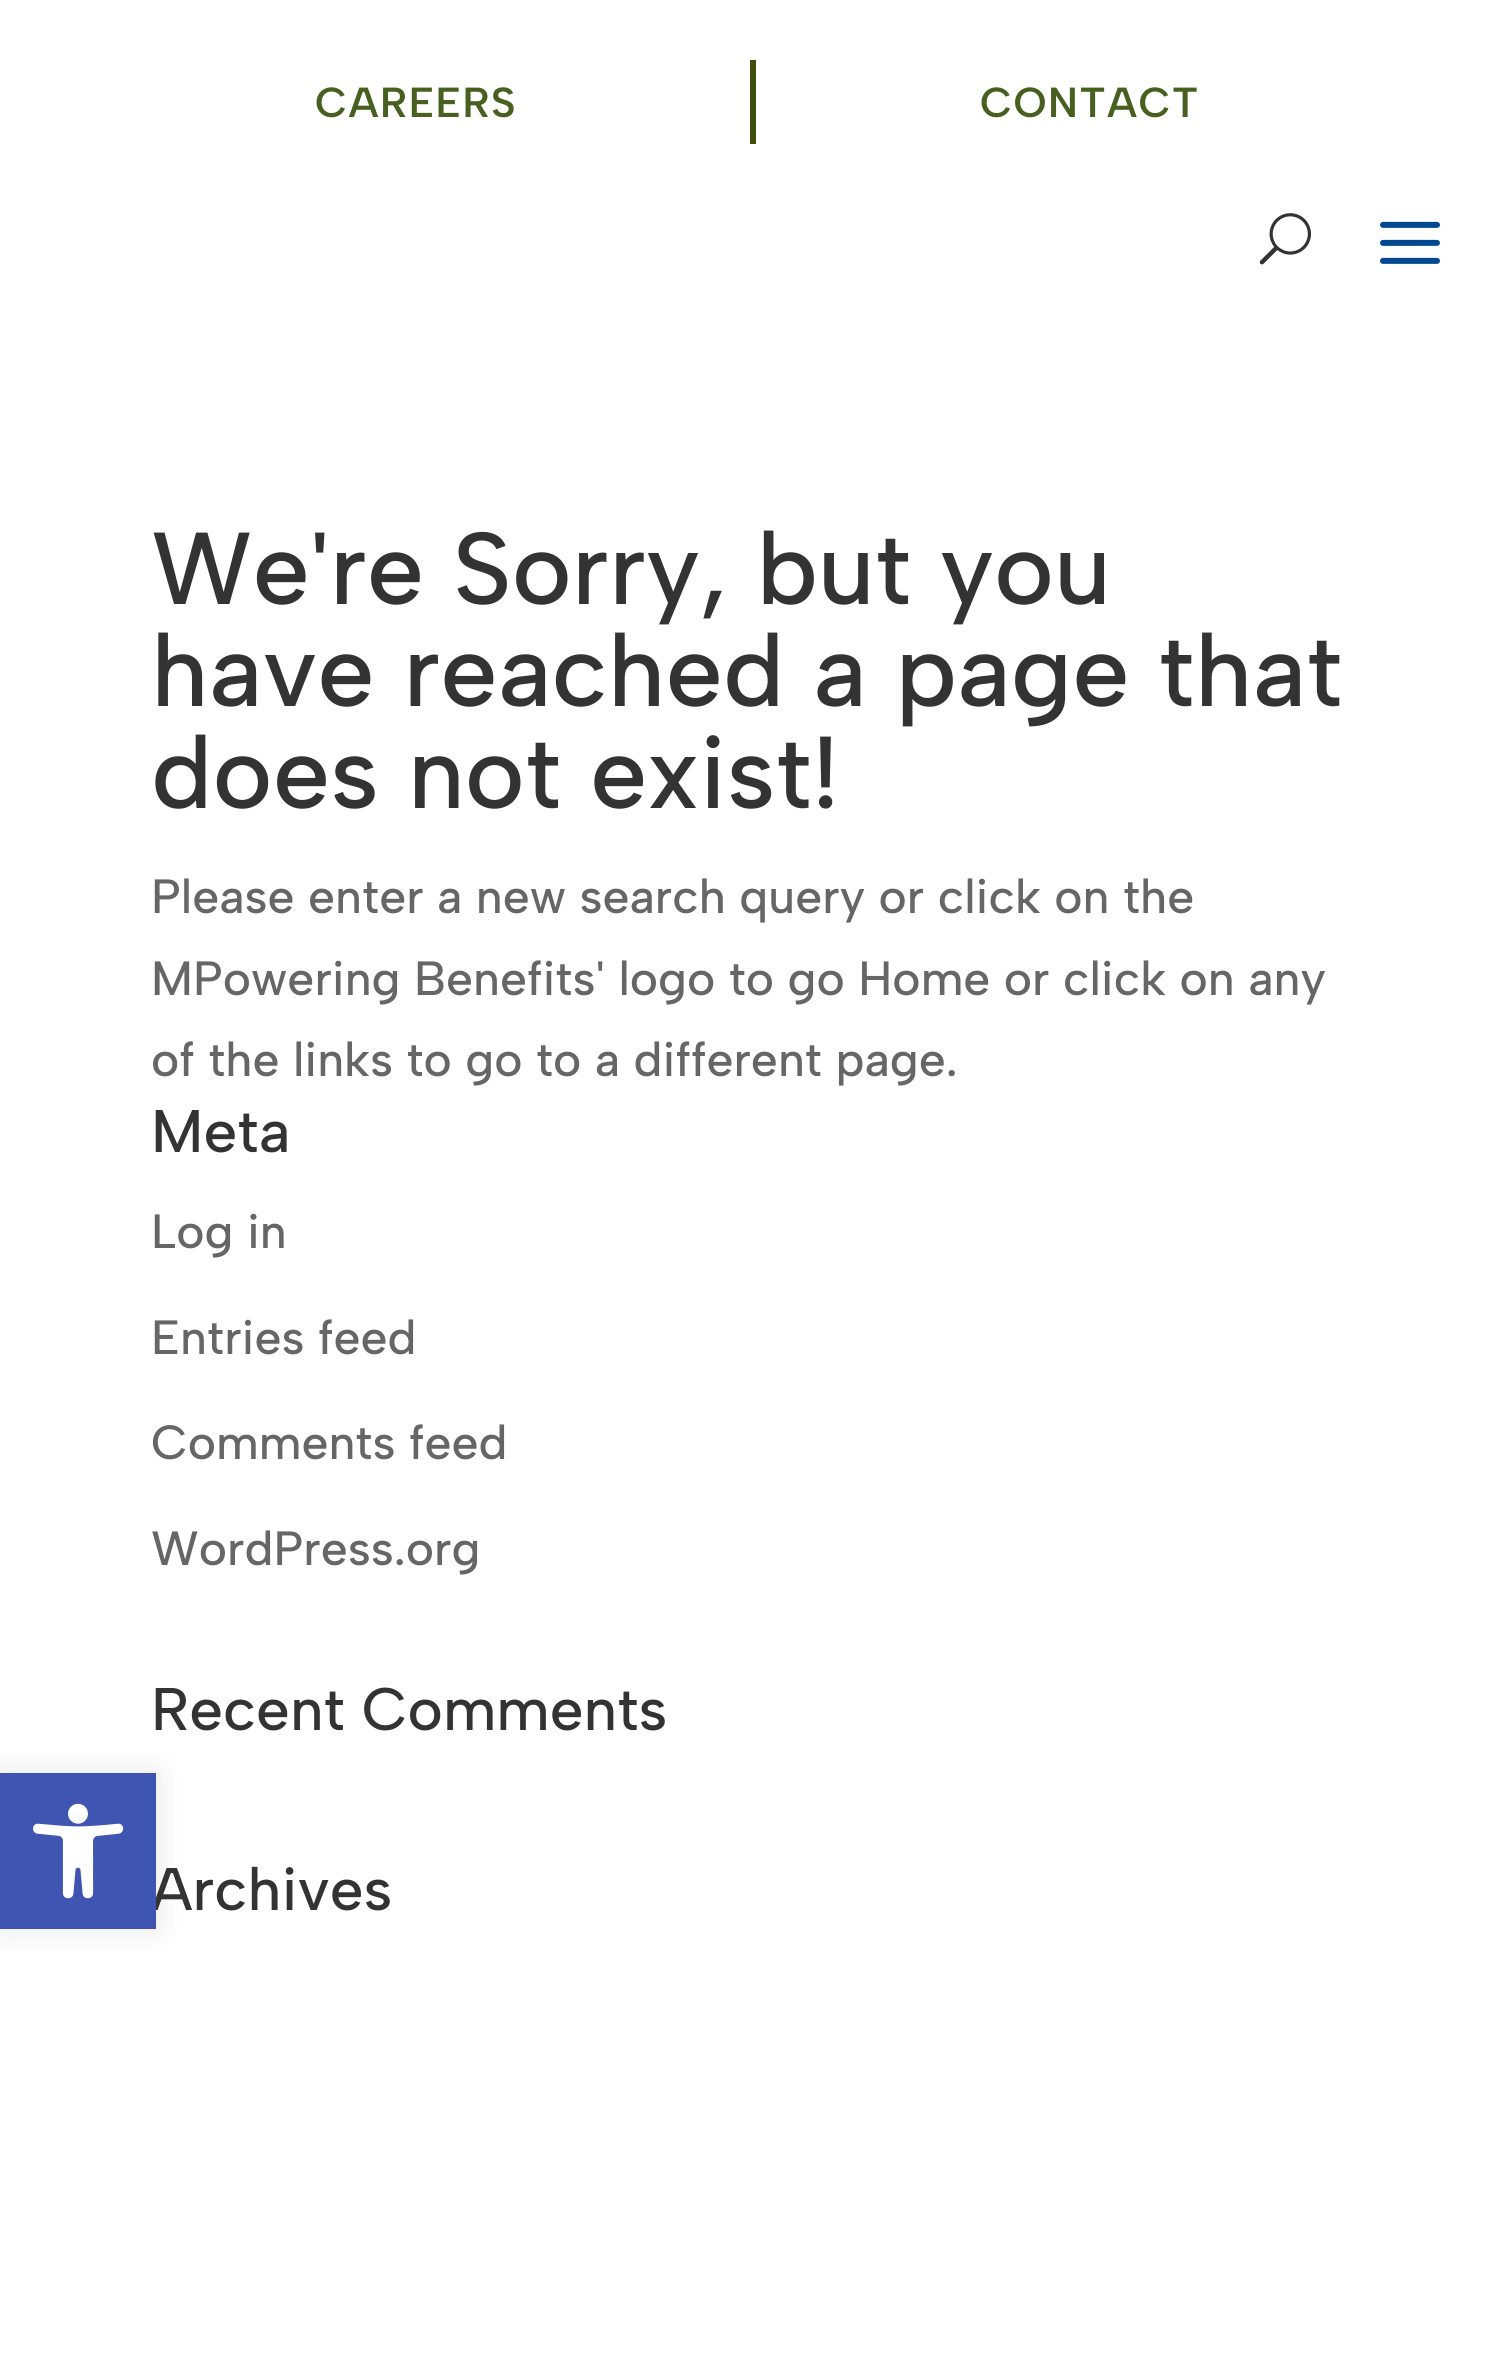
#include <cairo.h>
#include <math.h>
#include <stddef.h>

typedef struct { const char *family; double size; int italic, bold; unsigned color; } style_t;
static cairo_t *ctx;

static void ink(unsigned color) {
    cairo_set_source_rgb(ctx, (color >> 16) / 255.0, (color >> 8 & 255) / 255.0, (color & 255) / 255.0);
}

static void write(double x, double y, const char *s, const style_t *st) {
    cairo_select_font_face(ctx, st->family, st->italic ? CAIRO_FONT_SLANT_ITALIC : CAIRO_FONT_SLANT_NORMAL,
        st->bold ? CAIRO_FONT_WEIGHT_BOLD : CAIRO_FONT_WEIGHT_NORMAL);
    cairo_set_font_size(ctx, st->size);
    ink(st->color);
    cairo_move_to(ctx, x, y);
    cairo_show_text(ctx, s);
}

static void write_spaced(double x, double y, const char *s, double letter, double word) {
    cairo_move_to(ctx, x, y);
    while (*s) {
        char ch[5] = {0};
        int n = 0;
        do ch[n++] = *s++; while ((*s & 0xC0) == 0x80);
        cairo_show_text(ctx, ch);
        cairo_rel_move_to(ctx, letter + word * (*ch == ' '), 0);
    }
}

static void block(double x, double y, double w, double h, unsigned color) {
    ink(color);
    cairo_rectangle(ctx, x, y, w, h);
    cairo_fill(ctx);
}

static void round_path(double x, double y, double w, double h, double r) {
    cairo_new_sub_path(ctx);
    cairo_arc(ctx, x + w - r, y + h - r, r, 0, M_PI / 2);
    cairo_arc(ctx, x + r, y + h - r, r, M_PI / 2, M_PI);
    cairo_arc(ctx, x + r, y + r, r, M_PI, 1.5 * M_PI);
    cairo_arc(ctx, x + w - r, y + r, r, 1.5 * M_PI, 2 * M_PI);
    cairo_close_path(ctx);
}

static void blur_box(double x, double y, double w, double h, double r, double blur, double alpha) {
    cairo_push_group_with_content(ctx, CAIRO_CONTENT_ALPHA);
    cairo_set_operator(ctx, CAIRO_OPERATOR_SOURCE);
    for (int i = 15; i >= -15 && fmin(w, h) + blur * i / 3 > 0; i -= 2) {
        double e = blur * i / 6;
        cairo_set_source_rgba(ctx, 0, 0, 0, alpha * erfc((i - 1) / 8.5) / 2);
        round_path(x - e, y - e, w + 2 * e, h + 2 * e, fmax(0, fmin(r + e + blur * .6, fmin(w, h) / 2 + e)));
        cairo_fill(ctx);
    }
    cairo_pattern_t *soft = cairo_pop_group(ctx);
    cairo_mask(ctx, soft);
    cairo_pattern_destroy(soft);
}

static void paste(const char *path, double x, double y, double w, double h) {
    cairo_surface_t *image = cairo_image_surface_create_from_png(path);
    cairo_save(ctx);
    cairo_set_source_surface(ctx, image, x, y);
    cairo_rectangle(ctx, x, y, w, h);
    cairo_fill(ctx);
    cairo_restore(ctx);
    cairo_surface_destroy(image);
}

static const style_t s1 = {"Albert Sans Medium", 60, 0, 0, 0x333333};
static const style_t s2 = {"Albert Sans Medium", 102, 0, 0, 0x333333};
static const style_t s3 = {"Albert Sans Medium", 48, 0, 0, 0x666666};

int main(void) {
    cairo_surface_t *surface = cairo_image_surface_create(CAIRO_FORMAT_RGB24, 1505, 2364);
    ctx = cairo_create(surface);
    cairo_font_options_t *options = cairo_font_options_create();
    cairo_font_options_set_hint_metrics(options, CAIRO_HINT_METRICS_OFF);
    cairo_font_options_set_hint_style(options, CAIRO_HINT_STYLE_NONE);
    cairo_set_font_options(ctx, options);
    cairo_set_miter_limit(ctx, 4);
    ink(0xffffff);
    cairo_paint(ctx);
    ink(0x000000);
    blur_box(0, 1773, 156, 156, 0, 15, 0.1);
    write(151, 1910, "Archives", &s1);
    block(0, 1773, 156, 156, 0x4054b2);
    paste("pic1.png", 33, 1803, 91, 96);
    block(750, 60, 6, 84, 0x404e0e);
    cairo_select_font_face(ctx, "Albert Sans SemiBold", CAIRO_FONT_SLANT_NORMAL, CAIRO_FONT_WEIGHT_NORMAL);
    cairo_set_font_size(ctx, 42);
    ink(0x476020);
    write_spaced(315, 117, "CAREERS", 1.5, 0);
    write_spaced(980, 117, "CONTACT", 1.5, 0);
    paste("pic2.png", 1259, 213, 52, 52);
    paste("pic3.png", 1380, 221, 60, 43);
    write(151, 604, "We're Sorry, but you", &s2);
    write(151, 706, "have reached a page that", &s2);
    write(151, 808, "does not exist!", &s2);
    write(151, 913, "Please enter a new search query or click on the", &s3);
    write(151, 995, "MPowering Benefits' logo to go Home or click on any", &s3);
    write(151, 1076, "of the links to go to a different page.", &s3);
    write(151, 1152, "Meta", &s1);
    write(151, 1248, "Log in", &s3);
    write(151, 1354, "Entries feed", &s3);
    write(151, 1459, "Comments feed", &s3);
    write(151, 1565, "WordPress.org", &s3);
    write(151, 1730, "Recent Comments", &s1);
    cairo_surface_write_to_png(surface, "screenshot.png");
    cairo_font_options_destroy(options);
    cairo_destroy(ctx);
    cairo_surface_destroy(surface);
    return 0;
}
